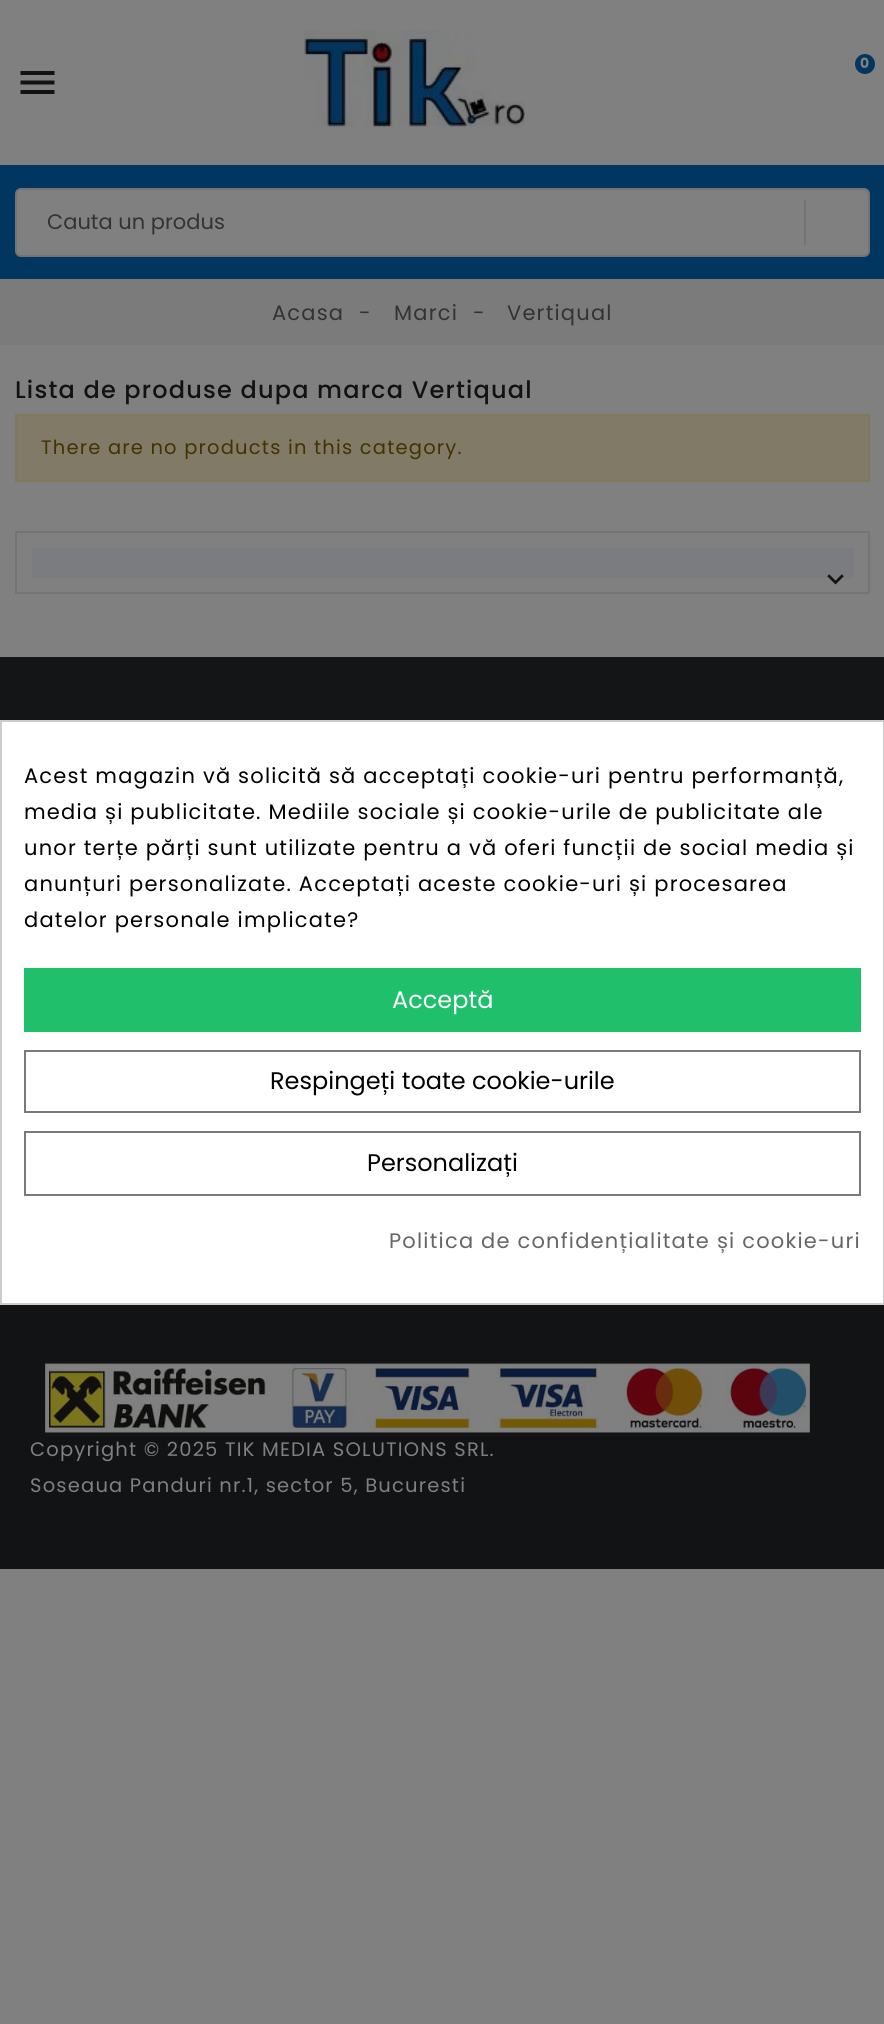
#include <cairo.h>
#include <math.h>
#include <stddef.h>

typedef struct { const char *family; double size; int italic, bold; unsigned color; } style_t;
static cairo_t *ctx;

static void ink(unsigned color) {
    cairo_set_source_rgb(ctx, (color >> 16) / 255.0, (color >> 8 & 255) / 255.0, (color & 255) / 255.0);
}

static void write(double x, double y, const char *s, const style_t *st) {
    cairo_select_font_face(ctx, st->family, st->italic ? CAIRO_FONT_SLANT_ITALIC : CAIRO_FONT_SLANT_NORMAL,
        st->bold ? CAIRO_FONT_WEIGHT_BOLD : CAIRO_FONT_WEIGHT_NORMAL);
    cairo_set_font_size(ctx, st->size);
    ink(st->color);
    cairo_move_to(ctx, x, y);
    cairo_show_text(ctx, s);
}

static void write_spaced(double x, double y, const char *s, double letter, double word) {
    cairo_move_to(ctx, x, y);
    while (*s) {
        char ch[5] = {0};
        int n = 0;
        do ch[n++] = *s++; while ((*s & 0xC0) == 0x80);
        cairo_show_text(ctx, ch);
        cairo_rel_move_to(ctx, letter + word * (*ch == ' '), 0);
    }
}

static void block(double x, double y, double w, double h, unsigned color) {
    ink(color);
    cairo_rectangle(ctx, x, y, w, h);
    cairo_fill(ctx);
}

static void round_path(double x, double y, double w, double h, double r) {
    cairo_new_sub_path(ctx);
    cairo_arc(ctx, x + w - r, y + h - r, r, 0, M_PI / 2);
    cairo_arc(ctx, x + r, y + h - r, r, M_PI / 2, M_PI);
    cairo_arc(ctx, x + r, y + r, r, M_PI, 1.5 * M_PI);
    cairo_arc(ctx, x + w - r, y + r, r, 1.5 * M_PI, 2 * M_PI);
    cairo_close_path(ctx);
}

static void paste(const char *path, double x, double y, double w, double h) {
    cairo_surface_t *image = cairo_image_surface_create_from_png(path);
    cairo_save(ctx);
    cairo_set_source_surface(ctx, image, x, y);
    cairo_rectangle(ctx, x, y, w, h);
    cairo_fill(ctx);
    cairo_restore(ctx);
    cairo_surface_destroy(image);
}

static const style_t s1 = {"Poppins", 21, 0, 0, 0x333333};
static const style_t s2 = {"Poppins", 24, 0, 0, 0xffffff};
static const style_t s3 = {"Poppins", 24, 0, 0, 0x000000};

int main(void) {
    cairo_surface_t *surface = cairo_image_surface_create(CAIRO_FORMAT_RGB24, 884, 2024);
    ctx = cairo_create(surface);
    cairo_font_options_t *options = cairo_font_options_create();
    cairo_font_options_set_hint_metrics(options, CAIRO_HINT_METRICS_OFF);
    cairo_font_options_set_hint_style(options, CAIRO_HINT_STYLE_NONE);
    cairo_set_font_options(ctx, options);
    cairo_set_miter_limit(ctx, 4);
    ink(0x808080);
    cairo_paint(ctx);
    paste("pic1.png", 304, 30, 221, 97);
    ink(0x00365f);
    cairo_arc(ctx, 865, 64, 10, 0, 2 * M_PI);
    cairo_fill(ctx);
    cairo_select_font_face(ctx, "Poppins", CAIRO_FONT_SLANT_NORMAL, CAIRO_FONT_WEIGHT_BOLD);
    cairo_set_font_size(ctx, 14);
    ink(0x808080);
    write_spaced(860, 68, "0", 1.2, 0);
    ink(0x121212);
    cairo_new_path(ctx);
    cairo_move_to(ctx, 20.5, 94);
    cairo_line_to(ctx, 54.5, 94);
    cairo_line_to(ctx, 54.5, 90);
    cairo_line_to(ctx, 20.5, 90);
    cairo_close_path(ctx);
    cairo_move_to(ctx, 20.5, 84.5);
    cairo_line_to(ctx, 54.5, 84.5);
    cairo_line_to(ctx, 54.5, 80.5);
    cairo_line_to(ctx, 20.5, 80.5);
    cairo_close_path(ctx);
    cairo_move_to(ctx, 20.5, 71);
    cairo_line_to(ctx, 20.5, 75);
    cairo_line_to(ctx, 54.5, 75);
    cairo_line_to(ctx, 54.5, 71);
    cairo_close_path(ctx);
    cairo_fill(ctx);
    block(0, 165, 884, 114, 0x00365f);
    ink(0x808080);
    round_path(16, 189, 853, 67, 5);
    cairo_fill_preserve(ctx);
    ink(0x737373);
    cairo_stroke(ctx);
    write(47, 229, "Cauta un produs", &s1);
    block(804, 200, 2, 45, 0x737373);
    block(0, 279, 884, 66, 0x7b7b7b);
    ink(0x333333);
    write_spaced(272, 320, "Acasa", 1.2, 0);
    write_spaced(359, 320, "-", 1.2, 0);
    write_spaced(394, 320, "Marci", 1.2, 0);
    write_spaced(473, 320, "-", 1.2, 0);
    write_spaced(507, 320, "Vertiqual", 1.2, 0);
    cairo_select_font_face(ctx, "Poppins Medium", CAIRO_FONT_SLANT_NORMAL, CAIRO_FONT_WEIGHT_NORMAL);
    cairo_set_font_size(ctx, 24);
    ink(0x121212);
    write_spaced(15, 398, "Lista de produse dupa marca Vertiqual", 1.2, 0);
    ink(0x807a67);
    cairo_rectangle(ctx, 16, 415, 853, 66);
    cairo_fill_preserve(ctx);
    ink(0x80775d);
    cairo_stroke(ctx);
    cairo_select_font_face(ctx, "Poppins", CAIRO_FONT_SLANT_NORMAL, CAIRO_FONT_WEIGHT_NORMAL);
    cairo_set_font_size(ctx, 19.5);
    ink(0x433202);
    write_spaced(41, 454, "There are no products in this category.", 1.2, 0);
    cairo_rectangle(ctx, 16, 532, 853, 61);
    ink(0x747474);
    cairo_stroke(ctx);
    block(32, 548, 822, 30, 0x7b7c80);
    paste("pic2.png", 827, 574, 17, 11);
    block(0, 1305, 884, 264, 0x111315);
    block(0, 657, 884, 63, 0x131517);
    paste("pic3.png", 45, 1363, 765, 70);
    ink(0x808080);
    write_spaced(30, 1456, "Copyright © 2025 TIK MEDIA SOLUTIONS SRL.", 1.2, 0);
    write_spaced(30, 1492, "Soseaua Panduri nr.1, sector 5, Bucuresti", 1.2, 0);
    ink(0xffffff);
    cairo_rectangle(ctx, 1, 721, 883, 583);
    cairo_fill_preserve(ctx);
    ink(0xcccccc);
    cairo_stroke(ctx);
    cairo_set_font_size(ctx, 21);
    ink(0x000000);
    write_spaced(24, 783, "Acest magazin vă solicită să acceptați cookie-uri pentru performanță,", 1.2, 0);
    write_spaced(24, 819, "media și publicitate. Mediile sociale și cookie-urile de publicitate ale", 1.2, 0);
    write_spaced(24, 855, "unor terțe părți sunt utilizate pentru a vă oferi funcții de social media și", 1.2, 0);
    write_spaced(24, 891, "anunțuri personalizate. Acceptați aceste cookie-uri și procesarea", 1.2, 0);
    write_spaced(24, 927, "datelor personale implicate?", 1.2, 0);
    block(24, 968, 837, 64, 0x20bf6b);
    write(392, 1008, "Acceptă", &s2);
    cairo_rectangle(ctx, 25, 1051, 835, 61);
    ink(0x7a7a7a);
    cairo_stroke(ctx);
    write(270, 1089, "Respingeți toate cookie-urile", &s3);
    cairo_rectangle(ctx, 25, 1132, 835, 63);
    ink(0x7a7a7a);
    cairo_stroke(ctx);
    write(367, 1171, "Personalizați", &s3);
    cairo_set_font_size(ctx, 21);
    ink(0x666666);
    write_spaced(389, 1248, "Politica de confidențialitate și cookie-uri", 1.2, 0);
    cairo_surface_write_to_png(surface, "screenshot.png");
    cairo_font_options_destroy(options);
    cairo_destroy(ctx);
    cairo_surface_destroy(surface);
    return 0;
}
